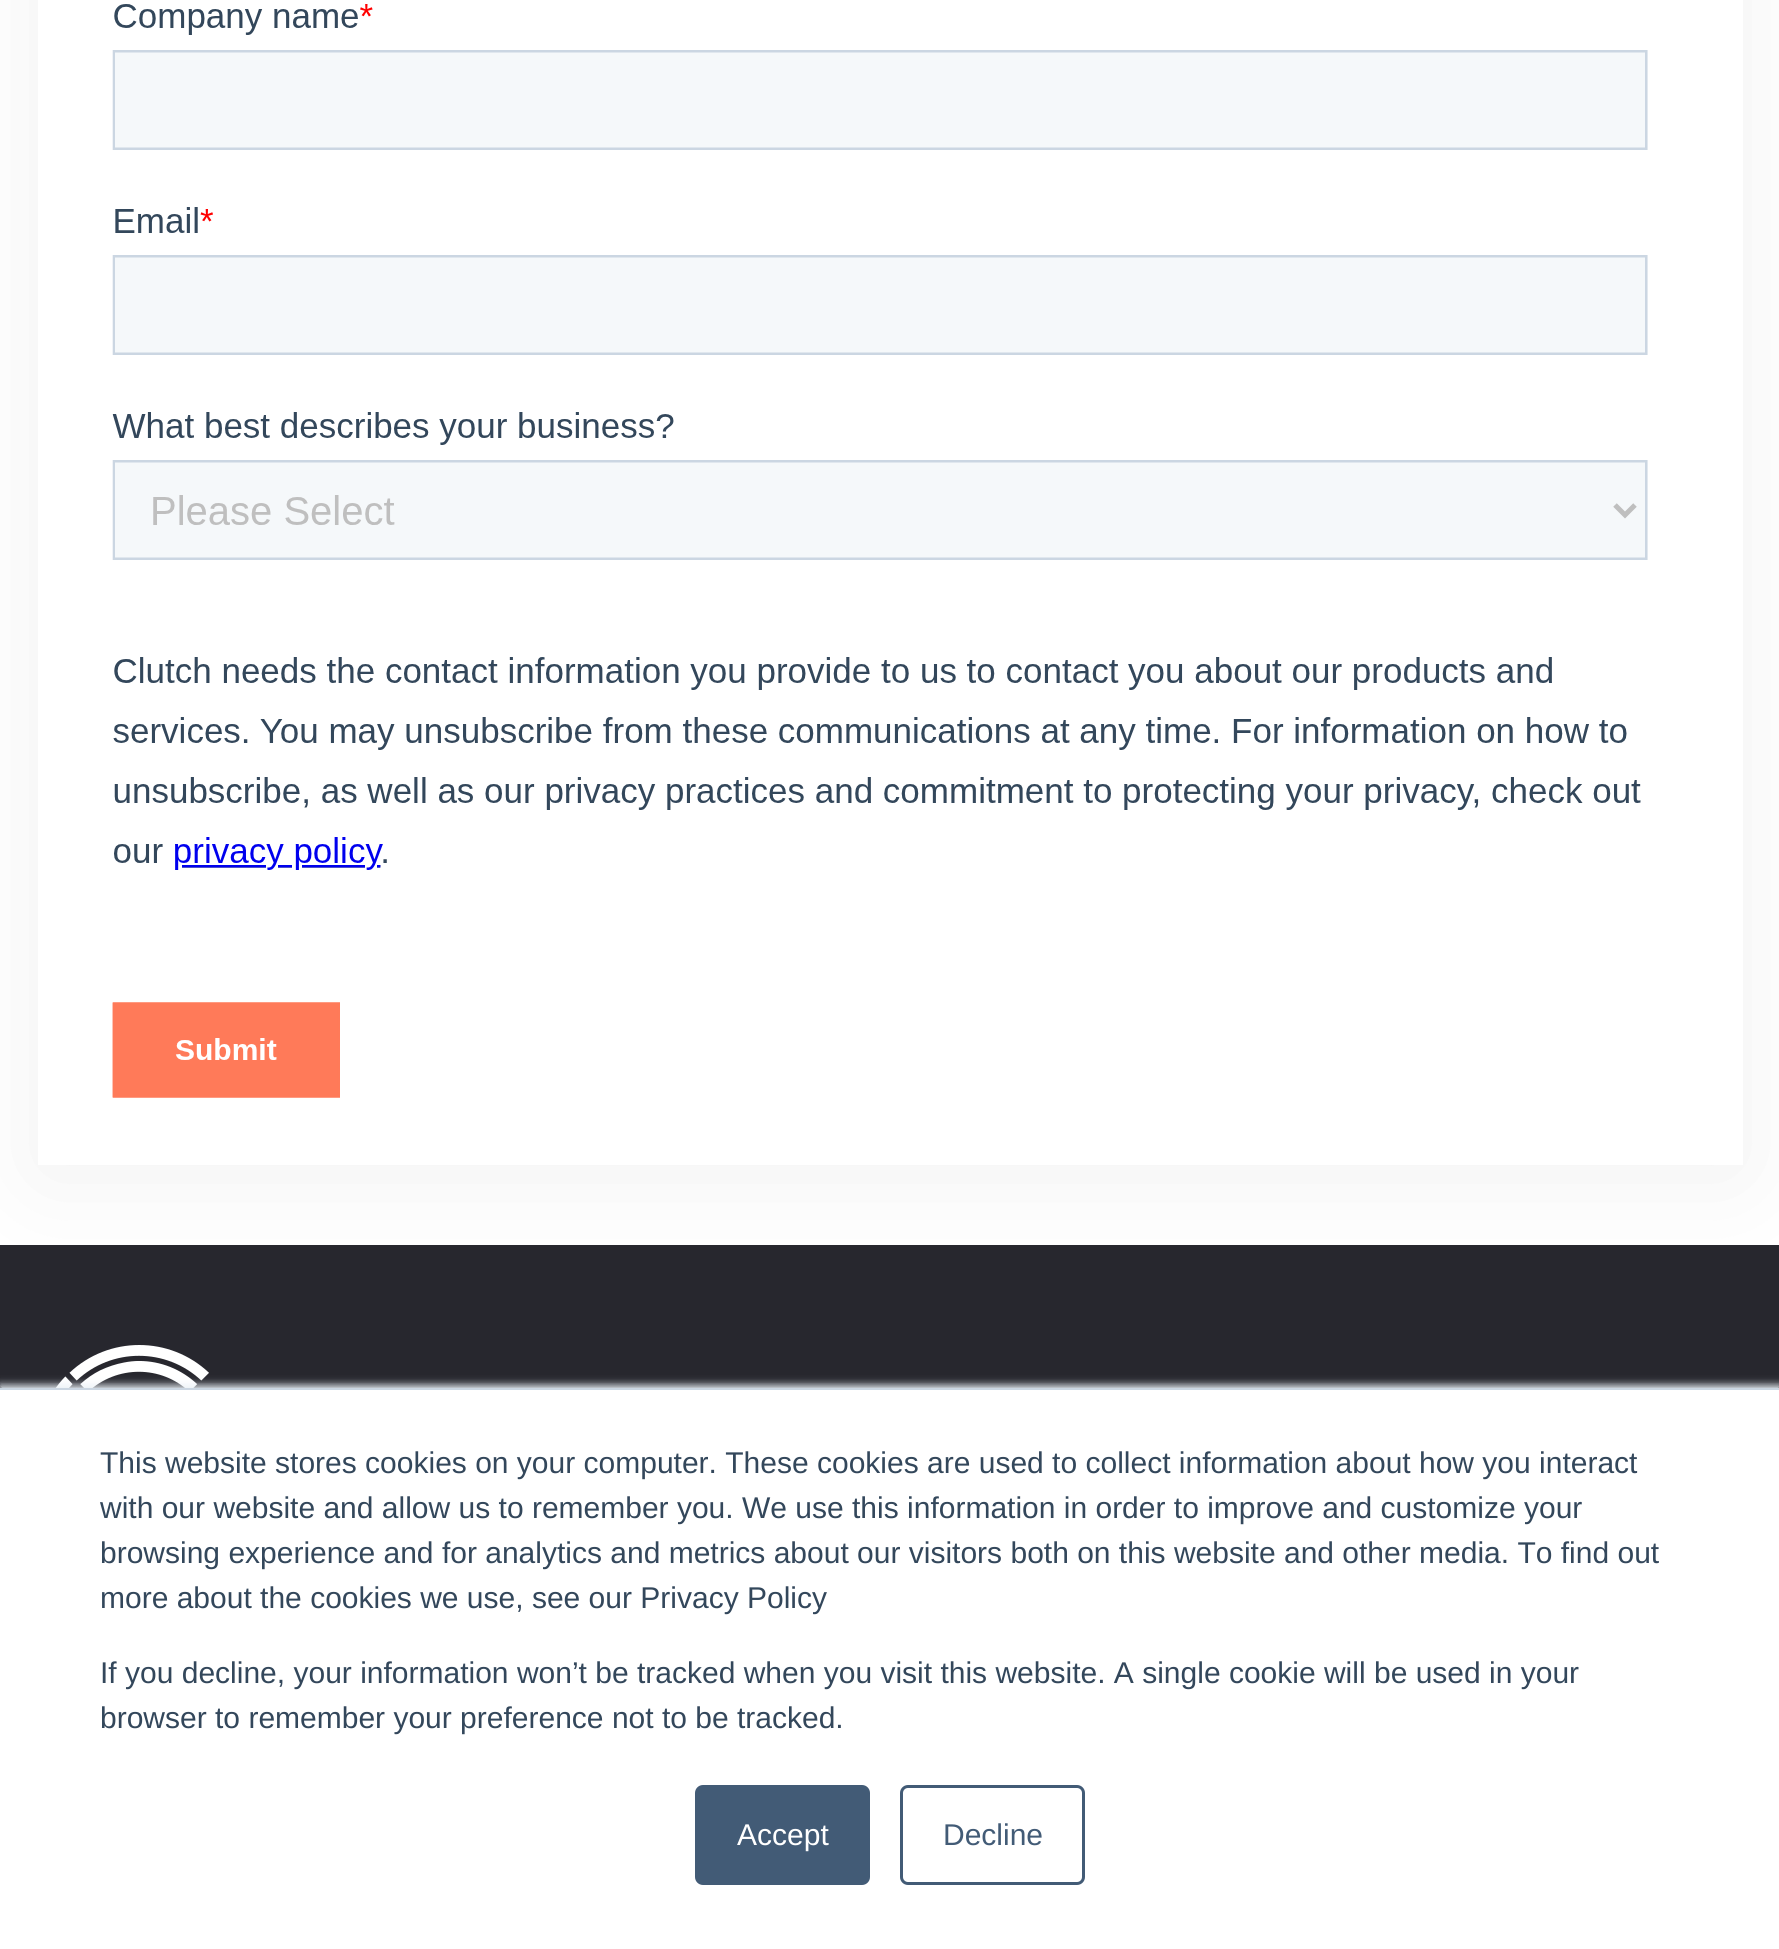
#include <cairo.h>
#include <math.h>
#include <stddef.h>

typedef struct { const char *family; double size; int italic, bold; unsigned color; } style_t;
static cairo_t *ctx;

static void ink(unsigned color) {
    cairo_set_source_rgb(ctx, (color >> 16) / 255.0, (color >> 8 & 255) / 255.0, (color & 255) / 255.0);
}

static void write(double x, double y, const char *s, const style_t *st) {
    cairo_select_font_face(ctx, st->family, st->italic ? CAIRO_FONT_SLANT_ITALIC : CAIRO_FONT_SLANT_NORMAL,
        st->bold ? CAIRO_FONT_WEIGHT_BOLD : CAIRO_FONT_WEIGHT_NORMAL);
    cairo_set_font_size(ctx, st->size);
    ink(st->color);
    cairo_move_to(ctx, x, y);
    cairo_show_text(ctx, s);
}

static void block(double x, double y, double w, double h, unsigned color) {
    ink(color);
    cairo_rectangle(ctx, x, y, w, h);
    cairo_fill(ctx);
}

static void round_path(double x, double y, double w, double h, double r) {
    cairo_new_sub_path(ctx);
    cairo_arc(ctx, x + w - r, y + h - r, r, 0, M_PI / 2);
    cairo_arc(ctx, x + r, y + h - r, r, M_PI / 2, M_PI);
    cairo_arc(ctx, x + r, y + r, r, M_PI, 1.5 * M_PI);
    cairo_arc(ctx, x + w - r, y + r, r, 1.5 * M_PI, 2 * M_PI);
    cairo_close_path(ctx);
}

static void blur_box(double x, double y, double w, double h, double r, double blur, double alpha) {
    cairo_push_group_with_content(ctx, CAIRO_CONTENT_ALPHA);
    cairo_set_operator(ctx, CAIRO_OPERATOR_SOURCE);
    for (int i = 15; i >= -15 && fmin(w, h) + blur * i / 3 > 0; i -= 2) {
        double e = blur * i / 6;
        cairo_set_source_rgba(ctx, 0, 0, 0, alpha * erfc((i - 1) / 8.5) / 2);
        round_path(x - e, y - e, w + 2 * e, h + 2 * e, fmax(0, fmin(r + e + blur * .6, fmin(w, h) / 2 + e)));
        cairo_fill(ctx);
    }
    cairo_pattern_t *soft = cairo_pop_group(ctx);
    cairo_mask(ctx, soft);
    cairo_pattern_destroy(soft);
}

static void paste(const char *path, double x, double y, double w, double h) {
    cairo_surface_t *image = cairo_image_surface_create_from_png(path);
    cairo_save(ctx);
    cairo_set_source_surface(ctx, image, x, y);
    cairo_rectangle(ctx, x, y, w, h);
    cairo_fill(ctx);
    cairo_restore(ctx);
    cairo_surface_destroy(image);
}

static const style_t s1 = {"Liberation Sans", 30, 0, 0, 0x33475b};
static const style_t s2 = {"Liberation Sans", 30, 0, 0, 0xffffff};
static const style_t s3 = {"Liberation Sans", 30, 0, 0, 0x425b76};

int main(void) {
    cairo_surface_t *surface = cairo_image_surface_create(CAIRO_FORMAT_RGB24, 1779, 1949);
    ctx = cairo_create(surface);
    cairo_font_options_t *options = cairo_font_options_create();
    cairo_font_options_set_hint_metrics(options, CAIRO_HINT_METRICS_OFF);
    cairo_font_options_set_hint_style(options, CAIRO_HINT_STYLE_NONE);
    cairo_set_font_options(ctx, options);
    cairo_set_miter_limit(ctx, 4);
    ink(0xffffff);
    cairo_paint(ctx);
    block(0, 1245, 1779, 143, 0x27272e);
    ink(0x000000);
    blur_box(38, -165, 1705, 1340, 0, 55, 0.06);
    block(38, 0, 1705, 1165, 0xffffff);
    paste("pic1.png", 112, 4, 1536, 1094);
    paste("pic2.png", 55, 1345, 154, 43);
    ink(0xeaf0f6);
    blur_box(0, 1385, 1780, 563, 0, 4, 1);
    block(0, 1388, 1779, 2, 0xcbd6e2);
    block(0, 1390, 1779, 559, 0xffffff);
    write(100, 1473, "This website stores cookies on your computer. These cookies are used to collect information about how you interact", &s1);
    write(100, 1518, "with our website and allow us to remember you. We use this information in order to improve and customize your", &s1);
    write(100, 1563, "browsing experience and for analytics and metrics about our visitors both on this website and other media. To find out", &s1);
    write(100, 1608, "more about the cookies we use, see our Privacy Policy", &s1);
    write(100, 1683, "If you decline, your information won’t be tracked when you visit this website. A single cookie will be used in your", &s1);
    write(100, 1728, "browser to remember your preference not to be tracked.", &s1);
    ink(0x425b76);
    round_path(696.5, 1786.5, 172, 97, 6.5);
    cairo_fill_preserve(ctx);
    cairo_set_line_width(ctx, 3);
    cairo_stroke(ctx);
    write(737, 1845, "Accept", &s2);
    round_path(901.5, 1786.5, 182, 97, 6.5);
    ink(0x425b76);
    cairo_stroke(ctx);
    write(943, 1845, "Decline", &s3);
    cairo_surface_write_to_png(surface, "screenshot.png");
    cairo_font_options_destroy(options);
    cairo_destroy(ctx);
    cairo_surface_destroy(surface);
    return 0;
}
